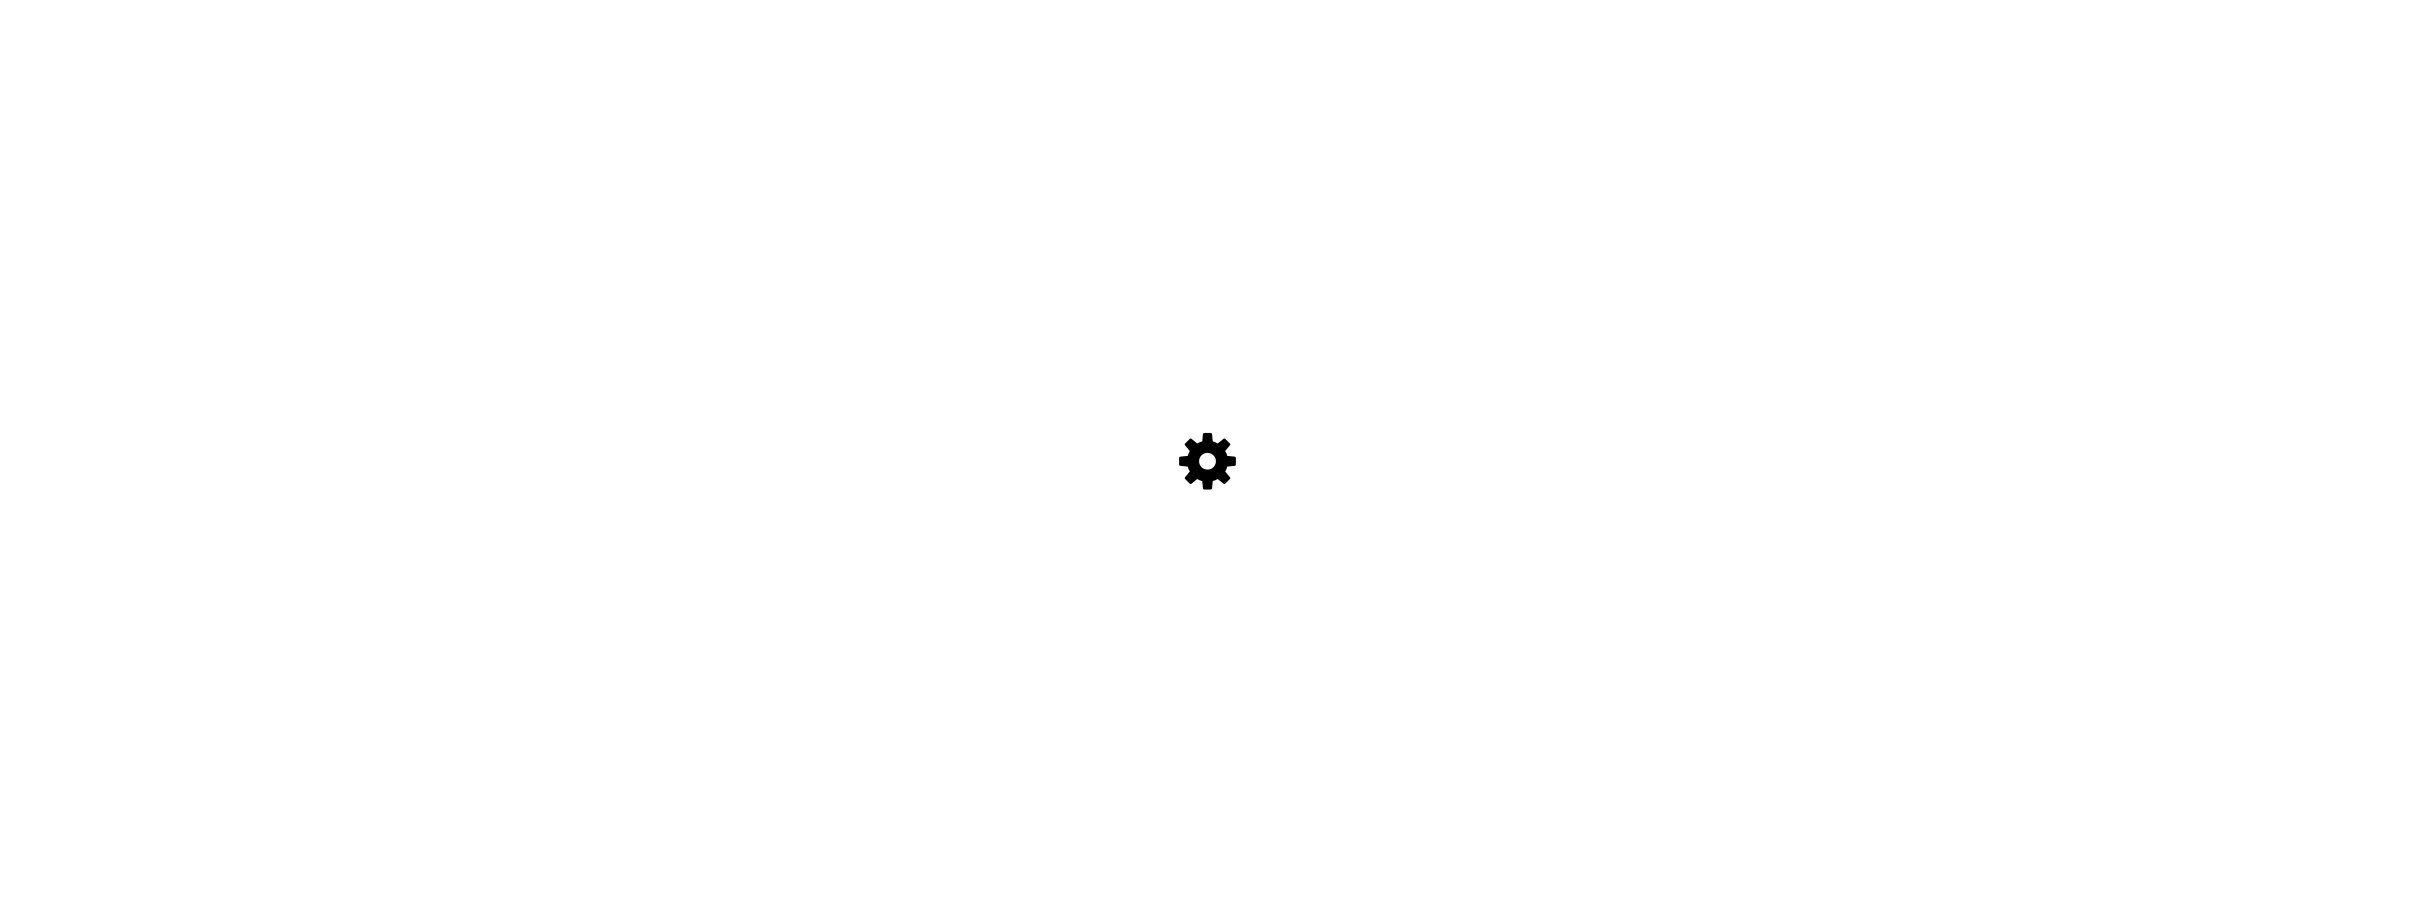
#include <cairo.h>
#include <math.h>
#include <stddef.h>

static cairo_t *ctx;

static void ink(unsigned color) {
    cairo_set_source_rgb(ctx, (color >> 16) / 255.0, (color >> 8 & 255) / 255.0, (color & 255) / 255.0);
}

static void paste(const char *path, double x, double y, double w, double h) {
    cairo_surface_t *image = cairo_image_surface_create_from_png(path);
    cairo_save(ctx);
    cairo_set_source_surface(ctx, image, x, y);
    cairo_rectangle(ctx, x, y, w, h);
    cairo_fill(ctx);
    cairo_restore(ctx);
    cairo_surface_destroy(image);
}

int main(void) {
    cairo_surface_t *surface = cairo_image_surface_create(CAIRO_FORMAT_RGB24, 2413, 919);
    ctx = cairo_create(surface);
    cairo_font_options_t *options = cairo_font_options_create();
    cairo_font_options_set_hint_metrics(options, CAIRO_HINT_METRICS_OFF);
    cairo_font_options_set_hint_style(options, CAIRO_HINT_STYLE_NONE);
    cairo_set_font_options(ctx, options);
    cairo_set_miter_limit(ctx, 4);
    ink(0xffffff);
    cairo_paint(ctx);
    paste("pic1.png", 1179, 432, 57, 58);
    cairo_surface_write_to_png(surface, "screenshot.png");
    cairo_font_options_destroy(options);
    cairo_destroy(ctx);
    cairo_surface_destroy(surface);
    return 0;
}
